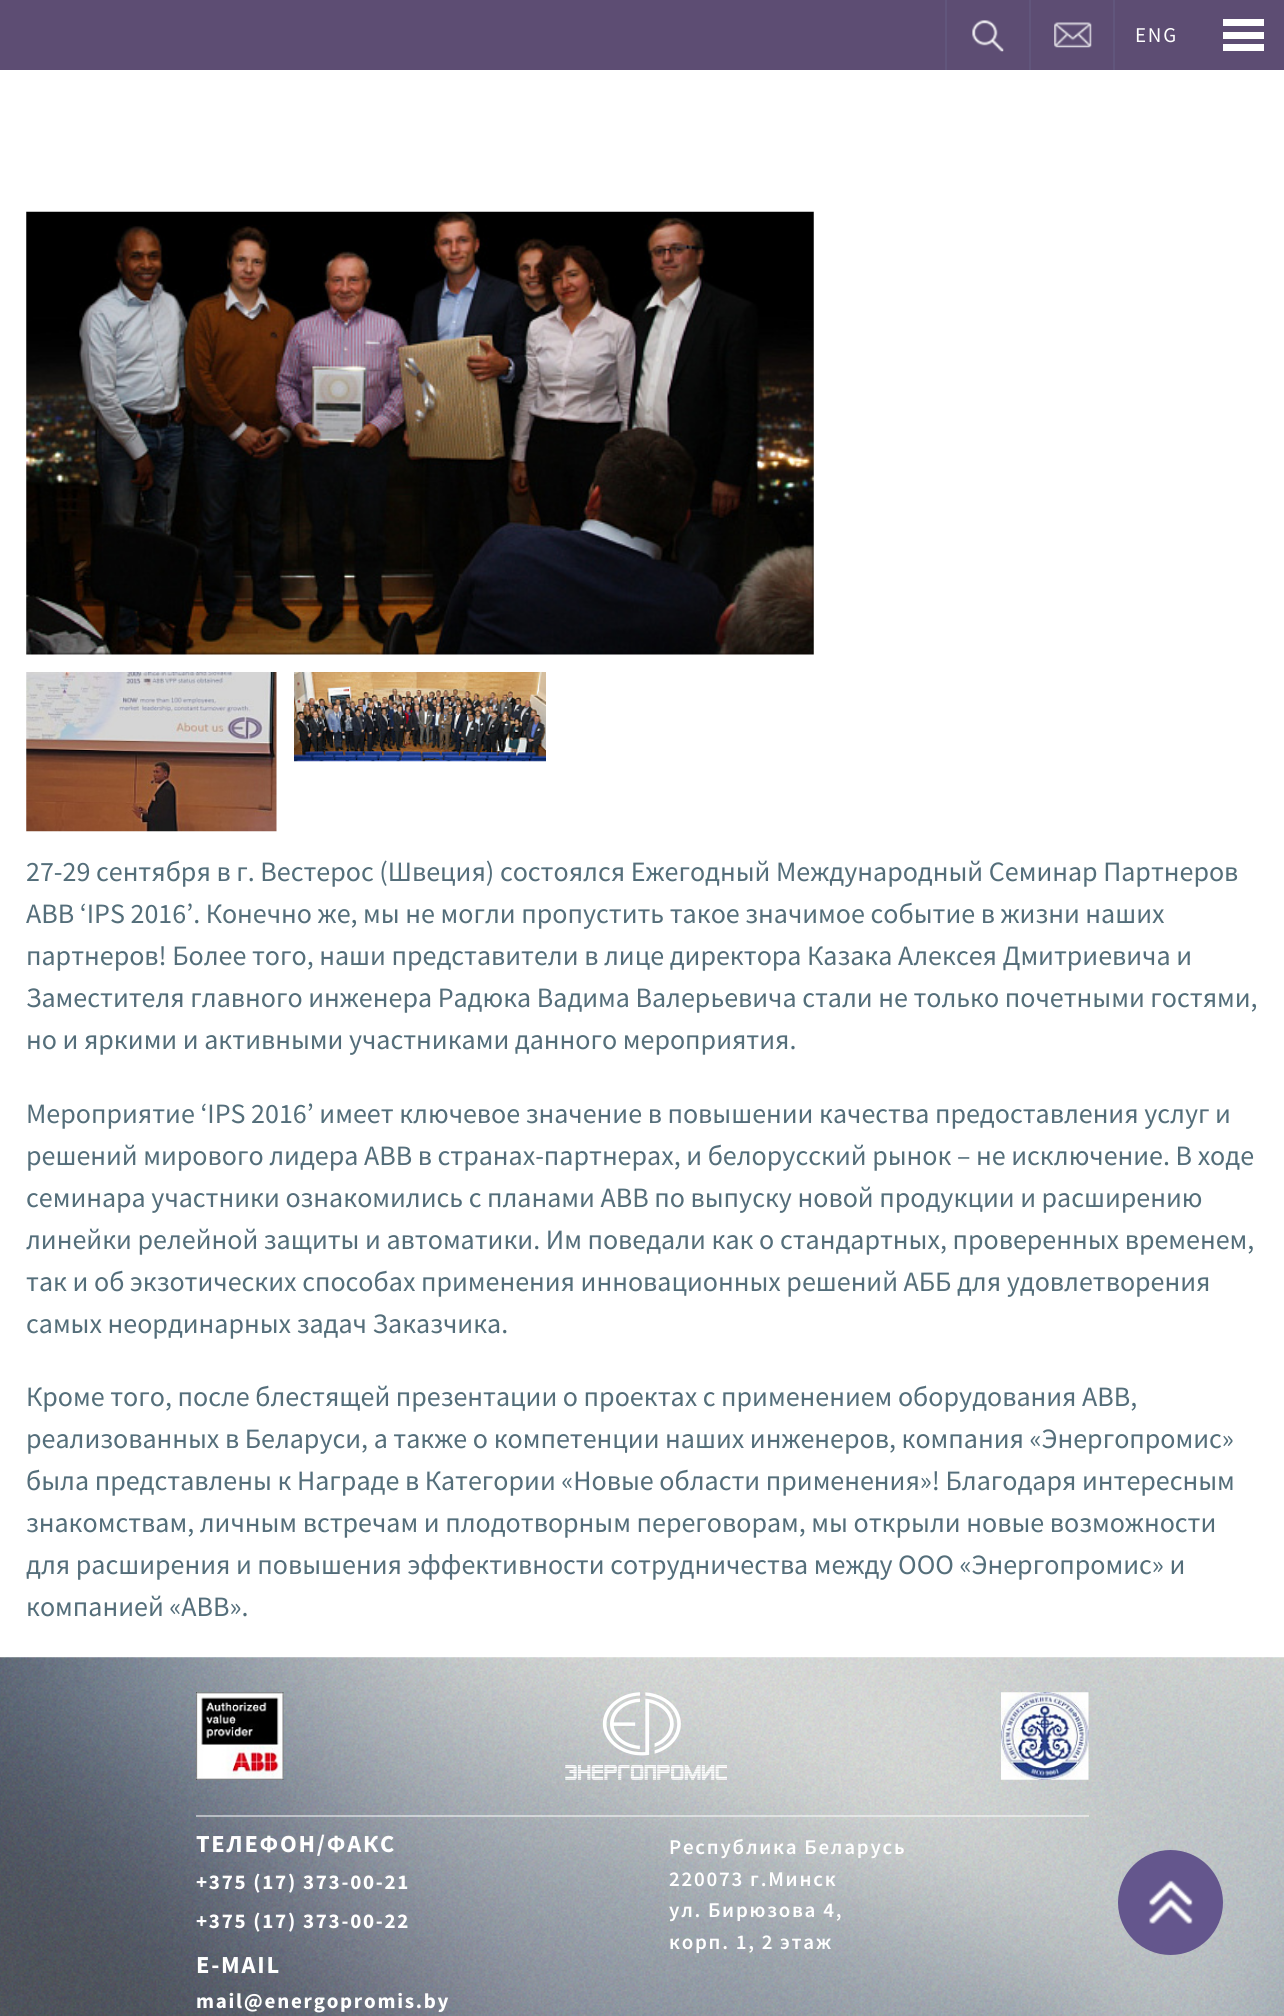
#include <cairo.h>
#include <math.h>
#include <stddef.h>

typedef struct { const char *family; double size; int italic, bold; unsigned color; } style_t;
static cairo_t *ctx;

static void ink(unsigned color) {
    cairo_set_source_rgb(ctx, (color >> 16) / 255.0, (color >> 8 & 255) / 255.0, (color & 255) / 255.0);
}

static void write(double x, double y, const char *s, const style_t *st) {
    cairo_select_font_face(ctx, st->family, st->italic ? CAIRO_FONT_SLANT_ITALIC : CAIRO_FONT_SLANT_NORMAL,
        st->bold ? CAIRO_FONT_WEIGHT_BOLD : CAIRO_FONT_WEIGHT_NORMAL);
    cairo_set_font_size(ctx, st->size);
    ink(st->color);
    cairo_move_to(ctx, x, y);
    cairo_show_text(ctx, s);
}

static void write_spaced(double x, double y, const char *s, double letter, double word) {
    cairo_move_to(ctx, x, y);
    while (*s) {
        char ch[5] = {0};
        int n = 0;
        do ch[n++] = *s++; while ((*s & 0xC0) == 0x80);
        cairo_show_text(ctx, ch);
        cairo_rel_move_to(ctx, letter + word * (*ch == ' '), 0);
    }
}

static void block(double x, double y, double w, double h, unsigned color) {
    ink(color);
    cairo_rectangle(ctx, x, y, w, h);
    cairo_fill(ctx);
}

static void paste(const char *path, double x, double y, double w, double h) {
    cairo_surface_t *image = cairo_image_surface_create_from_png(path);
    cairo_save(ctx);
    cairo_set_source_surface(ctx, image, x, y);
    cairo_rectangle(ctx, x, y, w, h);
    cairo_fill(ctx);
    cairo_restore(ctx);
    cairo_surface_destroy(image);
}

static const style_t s1 = {"Source Sans Pro", 28, 0, 0, 0x546e7a};

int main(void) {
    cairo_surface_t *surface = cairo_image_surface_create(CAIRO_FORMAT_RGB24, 1284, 2016);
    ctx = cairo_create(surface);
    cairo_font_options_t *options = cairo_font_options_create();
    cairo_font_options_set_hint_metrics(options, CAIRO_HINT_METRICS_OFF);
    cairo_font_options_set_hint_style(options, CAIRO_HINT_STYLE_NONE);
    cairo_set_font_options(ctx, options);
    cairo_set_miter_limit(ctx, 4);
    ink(0xffffff);
    cairo_paint(ctx);
    block(0, 0, 1284, 70, 0x5d4d73);
    block(945, 0, 2, 70, 0x61567c);
    paste("pic1.png", 972, 20, 32, 32);
    block(1029, 0, 2, 70, 0x61567c);
    paste("pic2.png", 1054, 22, 38, 26);
    block(1113, 0, 2, 70, 0x61567c);
    cairo_select_font_face(ctx, "Source Sans Pro", CAIRO_FONT_SLANT_NORMAL, CAIRO_FONT_WEIGHT_NORMAL);
    cairo_set_font_size(ctx, 21);
    ink(0xffffff);
    write_spaced(1135, 42, "ENG", 1.75, 0);
    block(1223, 19, 41, 7, 0xffffff);
    block(1223, 32, 41, 7, 0xffffff);
    block(1223, 44, 41, 7, 0xffffff);
    paste("pic3.png", 26, 211, 788, 444);
    paste("pic4.png", 26, 672, 251, 160);
    paste("pic5.png", 294, 672, 252, 90);
    write(26, 881, "27-29 сентября в г. Вестерос (Швеция) состоялся Ежегодный Международный Семинар Партнеров", &s1);
    write(26, 923, "ABB ‘IPS 2016’. Конечно же, мы не могли пропустить такое значимое событие в жизни наших", &s1);
    write(26, 965, "партнеров! Более того, наши представители в лице директора Казака Алексея Дмитриевича и", &s1);
    write(26, 1007, "Заместителя главного инженера Радюка Вадима Валерьевича стали не только почетными гостями,", &s1);
    write(26, 1049, "но и яркими и активными участниками данного мероприятия.", &s1);
    write(26, 1123, "Мероприятие ‘IPS 2016’ имеет ключевое значение в повышении качества предоставления услуг и", &s1);
    write(26, 1165, "решений мирового лидера ABB в странах-партнерах, и белорусский рынок – не исключение. В ходе", &s1);
    write(26, 1207, "семинара участники ознакомились с планами ABB по выпуску новой продукции и расширению", &s1);
    write(26, 1249, "линейки релейной защиты и автоматики. Им поведали как о стандартных, проверенных временем,", &s1);
    write(26, 1291, "так и об экзотических способах применения инновационных решений АББ для удовлетворения", &s1);
    write(26, 1333, "самых неординарных задач Заказчика.", &s1);
    write(26, 1406, "Кроме того, после блестящей презентации о проектах с применением оборудования ABB,", &s1);
    write(26, 1448, "реализованных в Беларуси, а также о компетенции наших инженеров, компания «Энергопромис»", &s1);
    write(26, 1490, "была представлены к Награде в Категории «Новые области применения»! Благодаря интересным", &s1);
    write(26, 1532, "знакомствам, личным встречам и плодотворным переговорам, мы открыли новые возможности", &s1);
    write(26, 1574, "для расширения и повышения эффективности сотрудничества между ООО «Энергопромис» и", &s1);
    write(26, 1616, "компанией «ABB».", &s1);
    paste("pic6.png", 0, 1657, 1284, 359);
    cairo_set_source_rgba(ctx, 1, 1, 1, 0.5);
    cairo_rectangle(ctx, 196, 1815, 893, 2);
    cairo_fill(ctx);
    paste("pic7.png", 196, 1692, 88, 88);
    paste("pic8.png", 565, 1692, 162, 88);
    paste("pic9.png", 1001, 1692, 88, 88);
    cairo_select_font_face(ctx, "Source Sans Pro", CAIRO_FONT_SLANT_NORMAL, CAIRO_FONT_WEIGHT_BOLD);
    cairo_set_font_size(ctx, 24.5);
    ink(0xffffff);
    write_spaced(196, 1852, "ТЕЛЕФОН/ФАКС", 1.75, 0);
    cairo_set_font_size(ctx, 21);
    write_spaced(196, 1889, "+375 (17) 373-00-21", 1.75, 0);
    write_spaced(196, 1928, "+375 (17) 373-00-22", 1.75, 0);
    cairo_set_font_size(ctx, 24.5);
    write_spaced(196, 1973, "E-MAIL", 1.75, 0);
    cairo_set_font_size(ctx, 21);
    write_spaced(196, 2008, "mail@energopromis.by", 1.75, 0);
    cairo_select_font_face(ctx, "Source Sans Pro SemiBold", CAIRO_FONT_SLANT_NORMAL, CAIRO_FONT_WEIGHT_NORMAL);
    write_spaced(669, 1854, "Республика Беларусь", 1.75, 0);
    write_spaced(669, 1886, "220073 г.Минск", 1.75, 0);
    write_spaced(669, 1917, "ул. Бирюзова 4,", 1.75, 0);
    write_spaced(669, 1949, "корп. 1, 2 этаж", 1.75, 0);
    ink(0x64568d);
    cairo_new_path(ctx);
    cairo_arc(ctx, 1170.5, 1902.5, 52.5, 0, 2 * M_PI);
    cairo_fill(ctx);
    paste("pic10.png", 1149, 1880, 44, 44);
    cairo_surface_write_to_png(surface, "screenshot.png");
    cairo_font_options_destroy(options);
    cairo_destroy(ctx);
    cairo_surface_destroy(surface);
    return 0;
}
